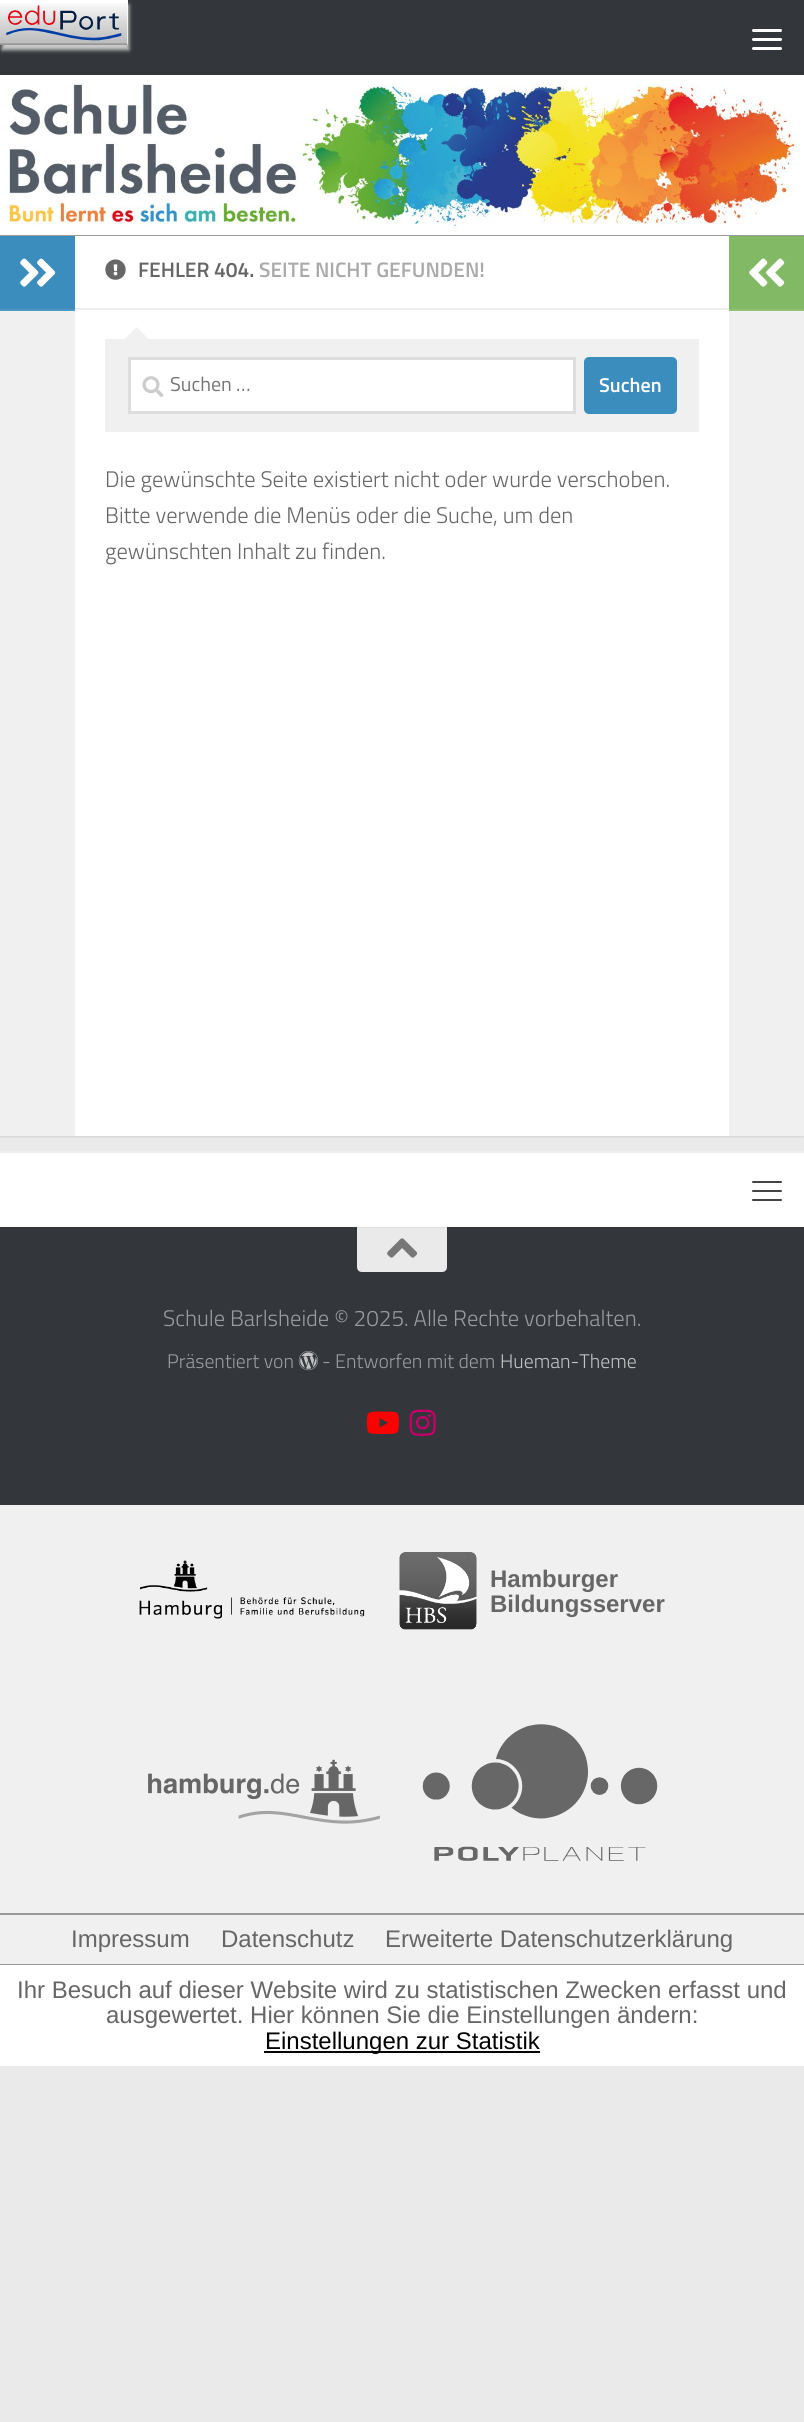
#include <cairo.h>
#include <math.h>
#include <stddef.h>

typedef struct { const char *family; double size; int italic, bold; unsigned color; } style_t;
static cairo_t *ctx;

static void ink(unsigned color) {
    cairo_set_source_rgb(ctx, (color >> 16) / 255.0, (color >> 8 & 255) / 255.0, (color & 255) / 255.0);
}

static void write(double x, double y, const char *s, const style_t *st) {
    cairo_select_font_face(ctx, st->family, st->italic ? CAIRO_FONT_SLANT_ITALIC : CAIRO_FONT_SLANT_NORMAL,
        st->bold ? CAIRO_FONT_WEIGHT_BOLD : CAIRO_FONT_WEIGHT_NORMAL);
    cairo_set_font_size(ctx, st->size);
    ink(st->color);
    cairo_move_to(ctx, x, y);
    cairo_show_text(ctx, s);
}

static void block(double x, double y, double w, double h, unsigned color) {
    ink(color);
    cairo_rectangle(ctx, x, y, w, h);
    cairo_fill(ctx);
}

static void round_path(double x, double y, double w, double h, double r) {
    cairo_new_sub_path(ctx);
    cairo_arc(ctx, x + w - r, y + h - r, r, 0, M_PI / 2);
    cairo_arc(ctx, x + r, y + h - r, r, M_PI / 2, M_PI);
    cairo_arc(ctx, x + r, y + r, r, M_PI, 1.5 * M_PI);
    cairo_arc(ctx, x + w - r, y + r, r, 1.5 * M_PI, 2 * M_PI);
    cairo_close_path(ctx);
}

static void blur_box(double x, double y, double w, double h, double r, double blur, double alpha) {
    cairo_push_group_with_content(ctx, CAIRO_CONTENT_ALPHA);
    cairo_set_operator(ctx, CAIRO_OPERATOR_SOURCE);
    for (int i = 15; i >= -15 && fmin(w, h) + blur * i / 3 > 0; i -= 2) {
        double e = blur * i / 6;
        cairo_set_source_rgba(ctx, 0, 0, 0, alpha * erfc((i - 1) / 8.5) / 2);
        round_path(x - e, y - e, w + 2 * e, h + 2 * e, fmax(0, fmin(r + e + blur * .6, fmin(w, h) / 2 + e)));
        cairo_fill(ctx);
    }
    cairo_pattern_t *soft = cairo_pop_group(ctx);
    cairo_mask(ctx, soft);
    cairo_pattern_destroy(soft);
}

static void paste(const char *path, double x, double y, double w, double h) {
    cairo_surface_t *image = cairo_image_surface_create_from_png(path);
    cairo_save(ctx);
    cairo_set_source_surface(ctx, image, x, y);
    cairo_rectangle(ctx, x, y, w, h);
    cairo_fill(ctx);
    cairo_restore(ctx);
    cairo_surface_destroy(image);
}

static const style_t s1 = {"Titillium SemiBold", 21, 0, 0, 0x666666};
static const style_t s2 = {"Titillium SemiBold", 21, 0, 0, 0xaaaaaa};
static const style_t s3 = {"Titillium", 20, 0, 0, 0x757575};
static const style_t s4 = {"Titillium SemiBold", 20, 0, 0, 0xffffff};
static const style_t s5 = {"Titillium Light", 22.5, 0, 0, 0x666666};
static const style_t s6 = {"Titillium Light", 22.5, 0, 0, 0x999b9d};
static const style_t s7 = {"Titillium Light", 19.75, 0, 0, 0x999b9d};
static const style_t s8 = {"Titillium Light", 19.75, 0, 0, 0xc2c3c4};
static const style_t s9 = {"Liberation Sans", 24, 0, 1, 0x666666};
static const style_t s10 = {"Liberation Sans", 24, 0, 0, 0x666666};
static const style_t s11 = {"Liberation Sans", 24, 0, 0, 0x000000};

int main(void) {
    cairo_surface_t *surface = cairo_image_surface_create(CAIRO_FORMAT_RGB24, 804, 2422);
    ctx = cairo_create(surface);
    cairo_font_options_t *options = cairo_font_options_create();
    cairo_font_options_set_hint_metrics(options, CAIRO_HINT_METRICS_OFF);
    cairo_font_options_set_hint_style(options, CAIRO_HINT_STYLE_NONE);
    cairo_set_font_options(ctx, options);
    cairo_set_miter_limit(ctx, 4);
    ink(0xeaeaea);
    cairo_paint(ctx);
    ink(0x000000);
    blur_box(0, 237, 804, 900, 0, 1, 0.1);
    block(0, 0, 804, 236, 0x33363b);
    ink(0xcccccc);
    blur_box(2, 5, 127, 45, 0, 2, 1);
    block(0, 0, 128, 45, 0xffffff);
    paste("pic1.png", 0, 3, 128, 42);
    round_path(752, 29, 30, 3, 1.5);
    cairo_fill(ctx);
    round_path(752, 38, 30, 3, 1.5);
    cairo_fill(ctx);
    round_path(752, 47, 30, 3, 1.5);
    cairo_fill(ctx);
    paste("pic2.png", 0, 75, 804, 161);
    block(75, 236, 654, 900, 0xffffff);
    block(0, 311, 75, 825, 0xf0f0f0);
    block(0, 236, 75, 73, 0x3b8dbd);
    block(0, 309, 75, 2, 0x4f98c4);
    paste("pic3.png", 20, 258, 36, 29);
    block(75, 308, 654, 2, 0xeeeeee);
    paste("pic4.png", 105, 259, 21, 21);
    write(138, 277, "FEHLER 404.", &s1);
    write(259, 277, "SEITE NICHT GEFUNDEN!", &s2);
    block(105, 339, 594, 93, 0xf0f0f0);
    ink(0xf1f1f1);
    cairo_new_path(ctx);
    cairo_move_to(ctx, 148.5, 339);
    cairo_line_to(ctx, 124.5, 339);
    cairo_line_to(ctx, 136.5, 327);
    cairo_close_path(ctx);
    cairo_fill(ctx);
    ink(0xffffff);
    cairo_rectangle(ctx, 129.5, 358.5, 445, 54);
    cairo_fill_preserve(ctx);
    ink(0xdddddd);
    cairo_set_line_width(ctx, 3);
    cairo_stroke(ctx);
    paste("pic5.png", 142, 376, 22, 21);
    write(170, 391, "Suchen …", &s3);
    ink(0x3b8dbd);
    round_path(584, 357, 93, 57, 5);
    cairo_fill(ctx);
    write(599, 392, "Suchen", &s4);
    write(105, 487, "Die gewünschte Seite existiert nicht oder wurde verschoben.", &s5);
    write(105, 523, "Bitte verwende die Menüs oder die Suche, um den", &s5);
    write(105, 559, "gewünschten Inhalt zu finden.", &s5);
    block(729, 236, 75, 73, 0x82b965);
    block(729, 309, 75, 2, 0x8fc074);
    paste("pic6.png", 749, 258, 36, 29);
    block(729, 311, 75, 825, 0xf0f0f0);
    block(0, 1153, 804, 74, 0xffffff);
    block(0, 1151, 804, 2, 0xeeeeee);
    ink(0x444444);
    round_path(752, 1181, 30, 2, 1);
    cairo_fill(ctx);
    round_path(752, 1190, 30, 2, 1);
    cairo_fill(ctx);
    round_path(752, 1199, 30, 2, 1);
    cairo_fill(ctx);
    block(0, 1227, 804, 278, 0x33363b);
    ink(0xeaeaea);
    cairo_new_path(ctx);
    cairo_move_to(ctx, 357, 1227);
    cairo_line_to(ctx, 447, 1227);
    cairo_line_to(ctx, 447, 1267);
    cairo_curve_to(ctx, 447, 1270, 445, 1272, 442, 1272);
    cairo_line_to(ctx, 362, 1272);
    cairo_curve_to(ctx, 359, 1272, 357, 1270, 357, 1267);
    cairo_close_path(ctx);
    cairo_fill(ctx);
    block(357, 1227, 90, 1, 0xdedede);
    paste("pic7.png", 387, 1238, 31, 20);
    write(163, 1326, "Schule Barlsheide © 2025. Alle Rechte vorbehalten.", &s6);
    write(167, 1368, "Präsentiert von", &s7);
    paste("pic8.png", 298, 1351, 20, 20);
    write(322, 1368, "- Entworfen mit dem", &s7);
    write(500, 1368, "Hueman-Theme", &s8);
    paste("pic9.png", 366, 1411, 33, 23);
    paste("pic10.png", 409, 1409, 27, 27);
    block(0, 1505, 804, 459, 0xf0f0f0);
    paste("pic11.png", 139, 1560, 226, 59);
    paste("pic12.png", 399, 1552, 78, 78);
    write(490, 1587, "Hamburger", &s9);
    write(490, 1612, "Bildungsserver", &s9);
    paste("pic13.png", 148, 1759, 232, 65);
    paste("pic14.png", 422, 1724, 236, 137);
    block(0, 1913, 804, 2, 0x999999);
    block(0, 1964, 804, 1, 0x999999);
    write(71, 1947, "Impressum", &s10);
    write(221, 1947, "Datenschutz", &s10);
    write(385, 1947, "Erweiterte Datenschutzerklärung", &s10);
    block(0, 1965, 804, 101, 0xffffff);
    write(17, 1998, "Ihr Besuch auf dieser Website wird zu statistischen Zwecken erfasst und", &s10);
    write(106, 2023, "ausgewertet. Hier können Sie die Einstellungen ändern:", &s10);
    block(264, 2051, 276, 2, 0x000000);
    write(265, 2049, "Einstellungen zur Statistik", &s11);
    cairo_surface_write_to_png(surface, "screenshot.png");
    cairo_font_options_destroy(options);
    cairo_destroy(ctx);
    cairo_surface_destroy(surface);
    return 0;
}
